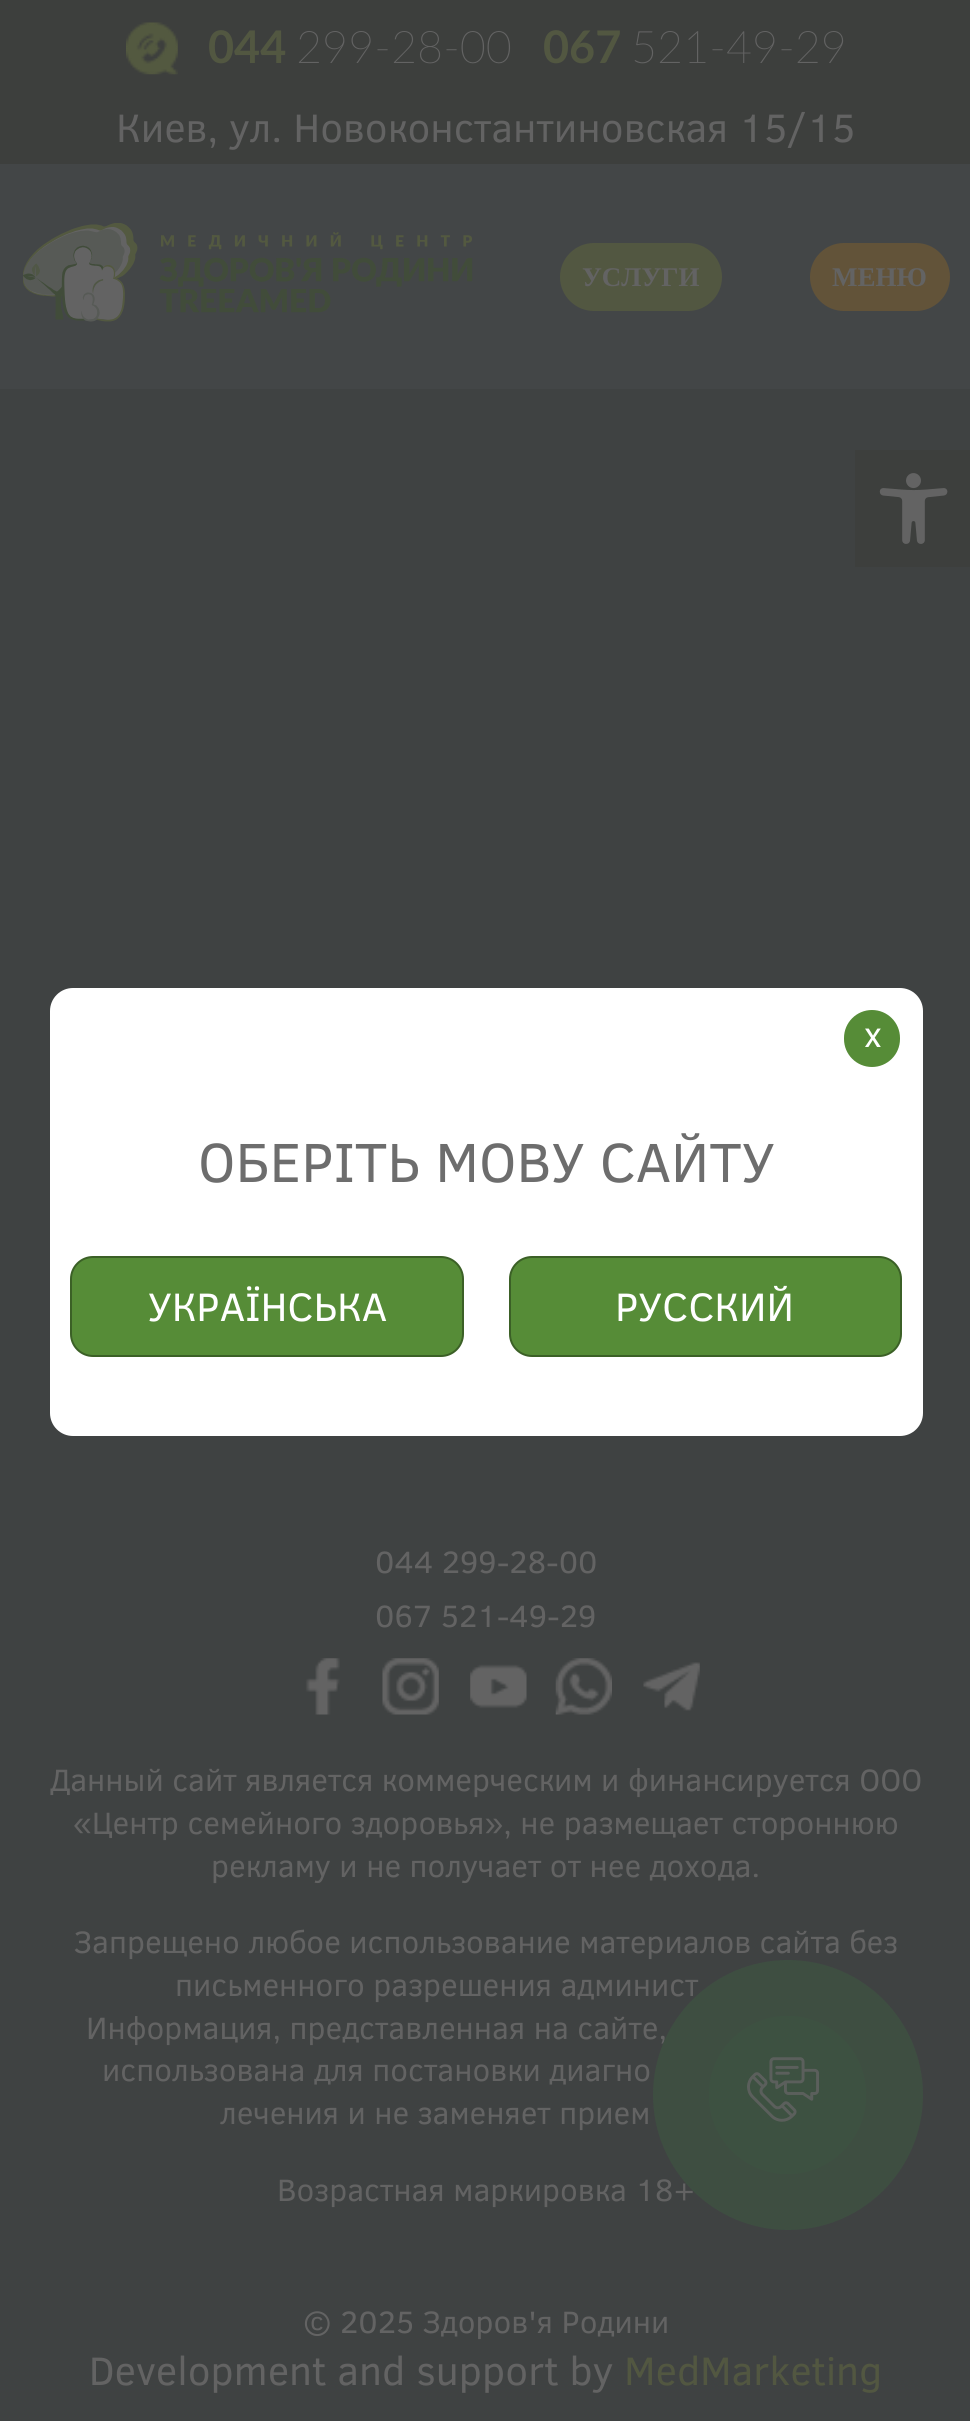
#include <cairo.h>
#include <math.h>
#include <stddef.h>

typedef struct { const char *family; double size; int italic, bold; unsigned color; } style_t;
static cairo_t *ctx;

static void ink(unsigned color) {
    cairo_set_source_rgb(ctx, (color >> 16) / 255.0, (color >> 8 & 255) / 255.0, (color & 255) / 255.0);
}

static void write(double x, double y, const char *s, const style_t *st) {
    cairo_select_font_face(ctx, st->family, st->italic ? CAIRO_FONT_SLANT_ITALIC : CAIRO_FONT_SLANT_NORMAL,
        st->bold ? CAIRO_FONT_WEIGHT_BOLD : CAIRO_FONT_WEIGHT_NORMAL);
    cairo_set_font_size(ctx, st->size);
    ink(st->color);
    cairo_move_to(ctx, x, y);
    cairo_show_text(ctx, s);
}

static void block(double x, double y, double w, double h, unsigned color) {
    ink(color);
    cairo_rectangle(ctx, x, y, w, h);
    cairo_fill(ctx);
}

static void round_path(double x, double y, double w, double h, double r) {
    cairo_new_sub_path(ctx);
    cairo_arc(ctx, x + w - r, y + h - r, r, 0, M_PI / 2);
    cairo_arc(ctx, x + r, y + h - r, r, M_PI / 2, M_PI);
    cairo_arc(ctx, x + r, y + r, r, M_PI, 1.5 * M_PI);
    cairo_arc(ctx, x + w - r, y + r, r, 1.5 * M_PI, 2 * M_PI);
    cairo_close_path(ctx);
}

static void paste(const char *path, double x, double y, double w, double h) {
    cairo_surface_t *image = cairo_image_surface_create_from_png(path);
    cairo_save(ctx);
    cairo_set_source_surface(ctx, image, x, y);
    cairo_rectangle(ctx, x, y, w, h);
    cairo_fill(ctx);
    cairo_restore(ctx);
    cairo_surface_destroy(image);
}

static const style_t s1 = {"Lato", 45, 0, 1, 0x525741};
static const style_t s2 = {"Lato Thin", 45, 0, 0, 0x636363};
static const style_t s3 = {"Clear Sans", 40.5, 0, 0, 0x636363};
static const style_t s4 = {"Liberation Serif", 27, 0, 1, 0x636363};
static const style_t s5 = {"Clear Sans", 36, 0, 0, 0xffffff};
static const style_t s6 = {"Clear Sans", 56.25, 0, 0, 0x6d6d6d};
static const style_t s7 = {"Clear Sans", 40.5, 0, 0, 0xffffff};
static const style_t s8 = {"Clear Sans", 31.5, 0, 0, 0x636363};
static const style_t s9 = {"Clear Sans", 40.5, 0, 0, 0x525741};

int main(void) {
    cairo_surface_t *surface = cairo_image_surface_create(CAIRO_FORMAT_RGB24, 970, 2421);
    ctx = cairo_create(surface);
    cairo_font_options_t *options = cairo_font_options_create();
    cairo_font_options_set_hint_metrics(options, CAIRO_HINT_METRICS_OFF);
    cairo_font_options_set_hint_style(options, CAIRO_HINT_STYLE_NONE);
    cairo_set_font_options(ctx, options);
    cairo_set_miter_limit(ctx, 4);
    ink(0x3f4242);
    cairo_paint(ctx);
    block(0, 0, 970, 164, 0x3d3f3d);
    paste("pic1.png", 126, 22, 52, 53);
    write(208, 63, "044", &s1);
    write(296, 63, "299-28-00", &s2);
    write(543, 63, "067", &s1);
    write(631, 63, "521-49-29", &s2);
    write(116, 142, "Киев, ул. Новоконстантиновская 15/15", &s3);
    block(0, 164, 970, 225, 0x434647);
    paste("pic2.png", 23, 223, 450, 99);
    ink(0x525741);
    round_path(560, 243, 162, 68, 34);
    cairo_fill(ctx);
    write(582, 286, "УСЛУГИ", &s4);
    ink(0x625339);
    round_path(810, 243, 140, 68, 34);
    cairo_fill(ctx);
    write(832, 286, "МЕНЮ", &s4);
    block(855, 450, 115, 117, 0x3d3f3d);
    paste("pic3.png", 879, 473, 69, 71);
    ink(0xffffff);
    round_path(50, 988, 873, 448, 23);
    cairo_fill(ctx);
    ink(0x568c37);
    round_path(844, 1010, 56, 57, 28);
    cairo_fill(ctx);
    write(864, 1047, "x", &s5);
    write(198, 1182, "ОБЕРІТЬ МОВУ САЙТУ", &s6);
    ink(0x568c37);
    round_path(71, 1257, 392, 99, 22);
    cairo_fill_preserve(ctx);
    ink(0x3b6026);
    cairo_stroke(ctx);
    write(148, 1321, "УКРАЇНСЬКА", &s7);
    ink(0x568c37);
    round_path(510, 1257, 391, 99, 22);
    cairo_fill_preserve(ctx);
    ink(0x3b6026);
    cairo_stroke(ctx);
    write(615, 1321, "РУССКИЙ", &s7);
    write(375, 1573, "044 299-28-00", &s8);
    write(375, 1627, "067 521-49-29", &s8);
    paste("pic4.png", 305, 1658, 35, 57);
    paste("pic5.png", 382, 1658, 57, 57);
    paste("pic6.png", 470, 1664, 57, 45);
    paste("pic7.png", 555, 1658, 57, 57);
    paste("pic8.png", 643, 1662, 57, 49);
    write(50, 1791, "Данный сайт является коммерческим и финансируется ООО", &s8);
    write(73, 1834, "«Центр семейного здоровья», не размещает стороннюю", &s8);
    write(211, 1877, "рекламу и не получает от нее дохода.", &s8);
    write(74, 1953, "Запрещено любое использование материалов сайта без", &s8);
    write(175, 1996, "письменного разрешения админист", &s8);
    write(86, 2039, "Информация, представленная на сайте,", &s8);
    write(102, 2081, "использована для постановки диагно", &s8);
    write(220, 2124, "лечения и не заменяет прием", &s8);
    write(277, 2201, "Возрастная маркировка 18+", &s8);
    write(303, 2333, "© 2025 Здоров'я Родини", &s8);
    write(89, 2385, "Development and support by", &s3);
    write(624, 2385, "МedМarketing", &s9);
    cairo_set_source_rgba(ctx, 0.243, 0.322, 0.255, 0.8);
    round_path(709, 2016, 157, 158, 78.5);
    cairo_fill(ctx);
    round_path(710, 2017, 155, 156, 77.5);
    cairo_stroke(ctx);
    cairo_arc(ctx, 788, 2095, 135, 0, 2 * M_PI);
    cairo_fill(ctx);
    paste("pic9.png", 747, 2057, 72, 65);
    cairo_surface_write_to_png(surface, "screenshot.png");
    cairo_font_options_destroy(options);
    cairo_destroy(ctx);
    cairo_surface_destroy(surface);
    return 0;
}
